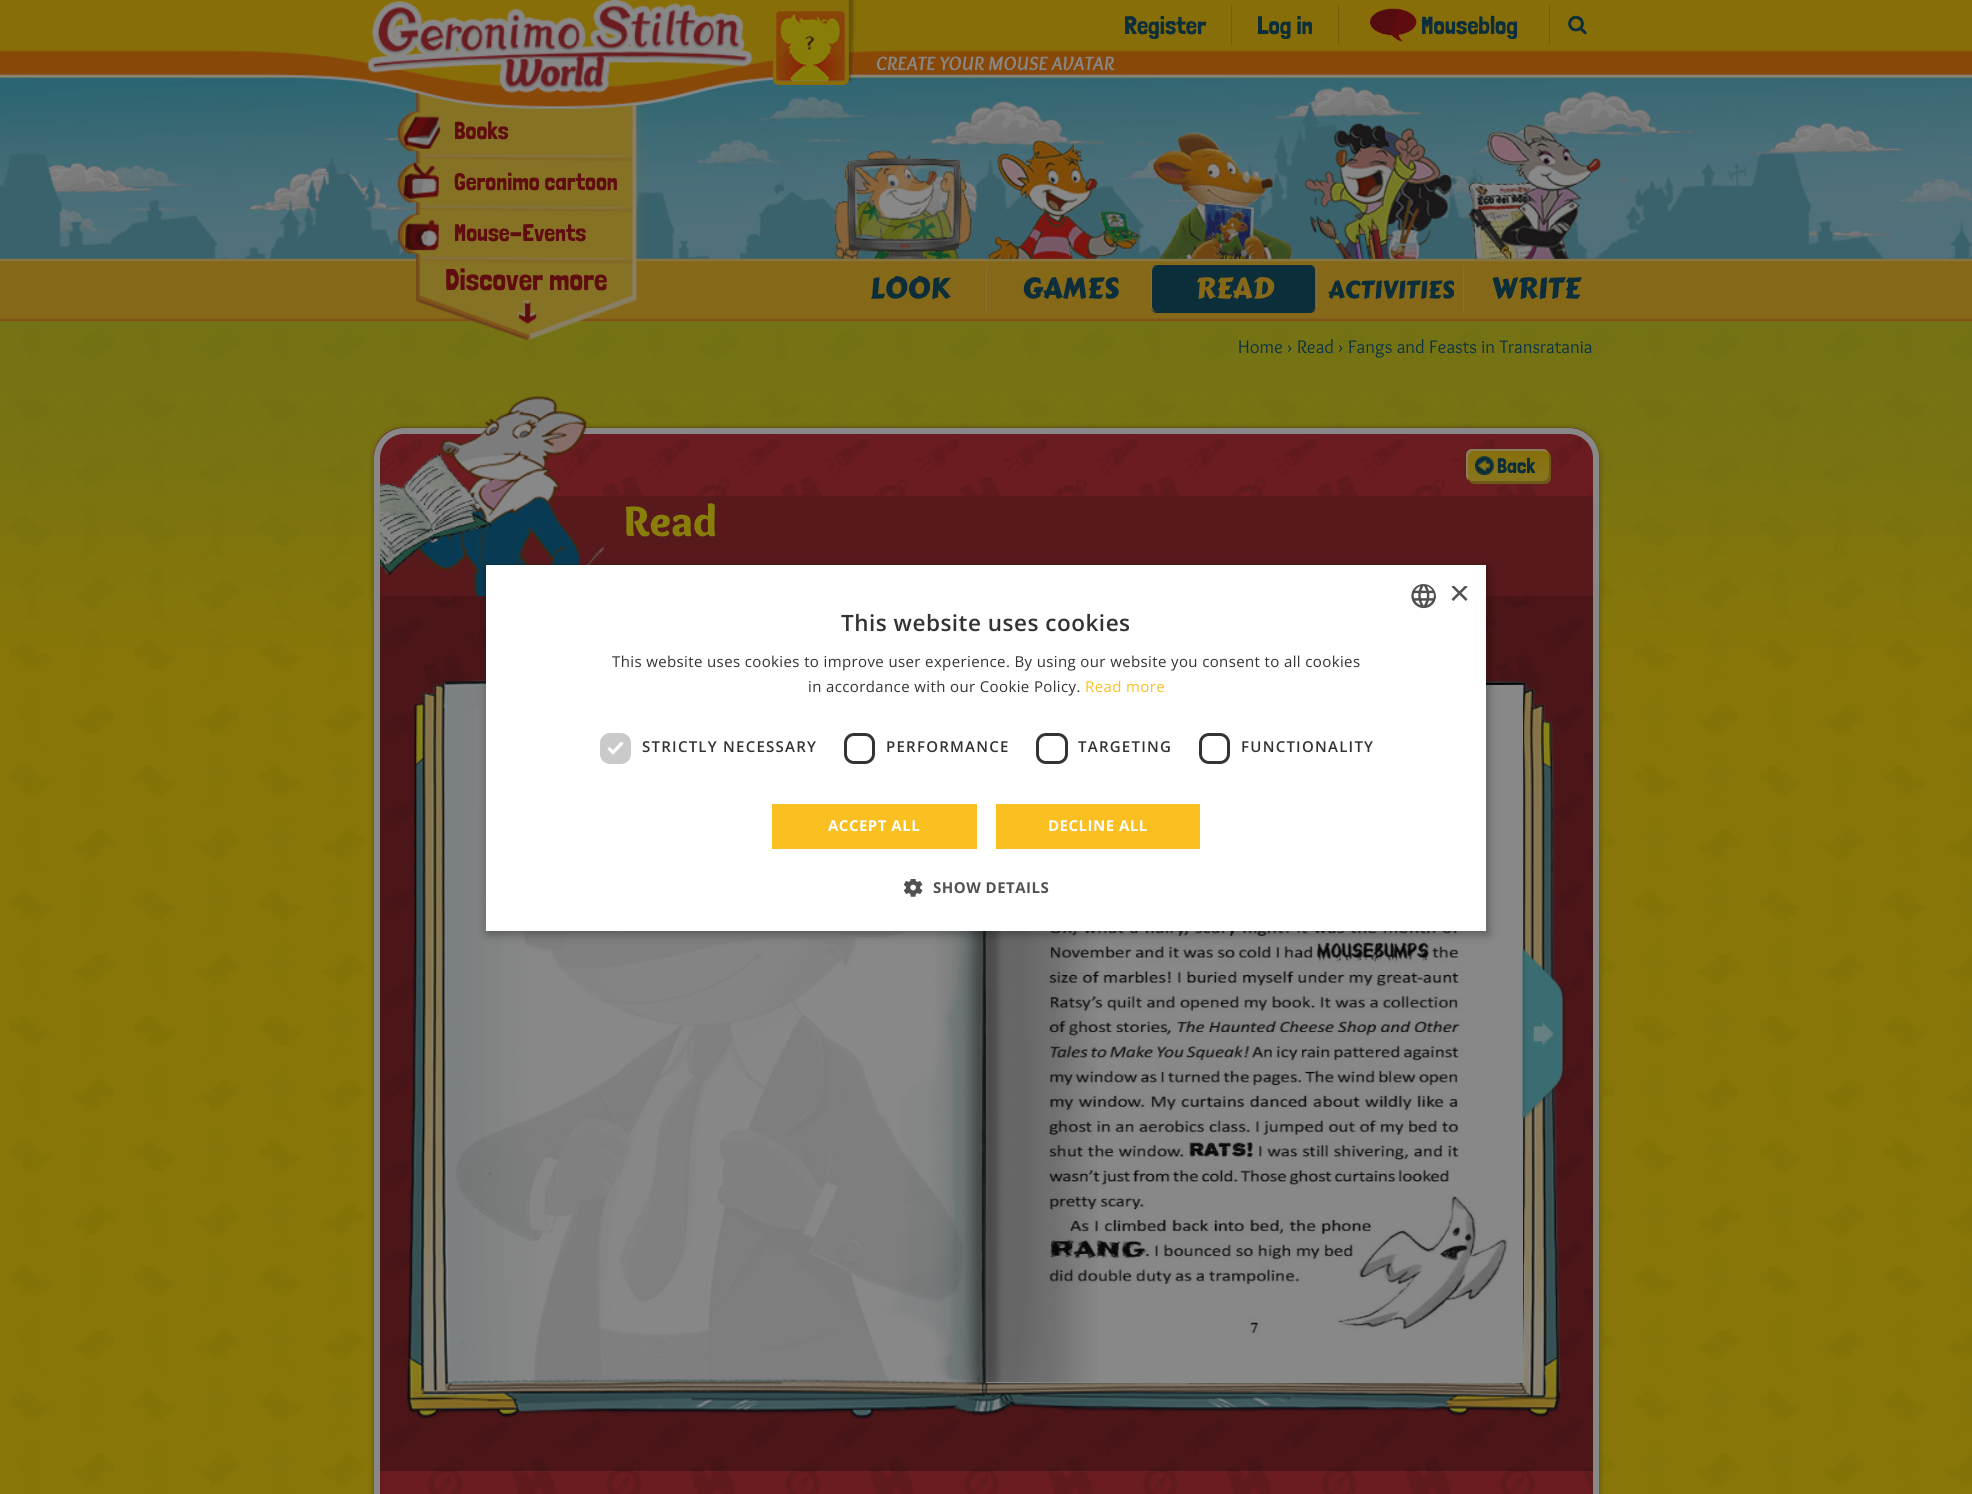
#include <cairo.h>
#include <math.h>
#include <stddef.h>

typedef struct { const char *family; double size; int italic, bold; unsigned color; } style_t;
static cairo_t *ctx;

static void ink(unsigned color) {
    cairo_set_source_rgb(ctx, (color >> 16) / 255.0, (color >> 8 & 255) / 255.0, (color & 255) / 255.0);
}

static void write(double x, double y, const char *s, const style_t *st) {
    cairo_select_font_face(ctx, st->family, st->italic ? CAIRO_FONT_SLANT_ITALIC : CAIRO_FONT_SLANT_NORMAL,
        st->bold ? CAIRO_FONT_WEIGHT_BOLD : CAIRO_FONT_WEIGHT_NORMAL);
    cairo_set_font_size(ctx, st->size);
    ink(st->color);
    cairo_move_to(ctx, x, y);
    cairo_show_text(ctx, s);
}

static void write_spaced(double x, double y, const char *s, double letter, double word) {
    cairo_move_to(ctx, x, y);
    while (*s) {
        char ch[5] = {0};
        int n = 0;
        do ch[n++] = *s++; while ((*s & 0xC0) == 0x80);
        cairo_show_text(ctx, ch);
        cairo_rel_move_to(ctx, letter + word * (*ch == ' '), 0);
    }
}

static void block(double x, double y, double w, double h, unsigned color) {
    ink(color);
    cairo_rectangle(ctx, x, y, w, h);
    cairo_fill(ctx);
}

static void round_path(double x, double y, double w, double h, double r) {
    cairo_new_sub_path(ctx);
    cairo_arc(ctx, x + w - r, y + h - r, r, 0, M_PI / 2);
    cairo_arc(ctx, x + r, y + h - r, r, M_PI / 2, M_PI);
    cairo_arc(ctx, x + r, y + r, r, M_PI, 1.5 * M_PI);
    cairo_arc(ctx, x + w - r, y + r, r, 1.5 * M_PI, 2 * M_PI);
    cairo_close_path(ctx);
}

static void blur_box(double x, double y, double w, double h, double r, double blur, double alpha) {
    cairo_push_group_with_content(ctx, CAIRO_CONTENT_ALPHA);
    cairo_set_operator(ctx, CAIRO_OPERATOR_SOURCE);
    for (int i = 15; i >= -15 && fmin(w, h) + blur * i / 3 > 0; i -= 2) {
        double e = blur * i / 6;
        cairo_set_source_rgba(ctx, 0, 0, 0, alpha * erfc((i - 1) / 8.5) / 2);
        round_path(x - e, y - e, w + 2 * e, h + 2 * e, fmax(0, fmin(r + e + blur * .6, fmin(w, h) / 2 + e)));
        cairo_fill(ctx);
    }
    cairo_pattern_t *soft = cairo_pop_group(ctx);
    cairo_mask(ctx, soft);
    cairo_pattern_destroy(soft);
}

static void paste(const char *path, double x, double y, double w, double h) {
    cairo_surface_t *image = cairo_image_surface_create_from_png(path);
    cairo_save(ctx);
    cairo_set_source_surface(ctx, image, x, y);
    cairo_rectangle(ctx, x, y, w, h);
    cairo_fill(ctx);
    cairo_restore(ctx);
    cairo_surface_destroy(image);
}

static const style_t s1 = {"Londrina Solid", 25, 0, 0, 0x0c2e3b};
static const style_t s2 = {"Overlock", 20, 1, 1, 0x888888};
static const style_t s3 = {"Londrina Solid", 24.25, 0, 0, 0x5f0d0e};
static const style_t s4 = {"Londrina Solid", 30, 0, 0, 0x5f0d0e};
static const style_t s5 = {"Carter One", 29, 0, 0, 0x0c2e3b};
static const style_t s6 = {"Carter One", 29, 0, 0, 0x866819};
static const style_t s7 = {"Carter One", 24.5, 0, 0, 0x0c2e3b};
static const style_t s8 = {"Overlock", 18.75, 0, 0, 0x093344};
static const style_t s9 = {"Londrina Solid", 21, 0, 0, 0x0c2e3b};
static const style_t s10 = {"Overlock Black", 44, 0, 0, 0x887e09};
static const style_t s11 = {"Liberation Sans", 36, 0, 0, 0x525252};

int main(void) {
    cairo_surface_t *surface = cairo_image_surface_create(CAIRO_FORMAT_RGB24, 1972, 1494);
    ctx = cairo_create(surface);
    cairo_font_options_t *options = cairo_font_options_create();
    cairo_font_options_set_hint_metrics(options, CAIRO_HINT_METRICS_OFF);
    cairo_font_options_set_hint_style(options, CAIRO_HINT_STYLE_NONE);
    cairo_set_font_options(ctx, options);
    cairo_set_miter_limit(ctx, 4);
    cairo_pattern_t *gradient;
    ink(0xffffff);
    cairo_paint(ctx);
    paste("pic1.png", 0, 76, 1972, 1418);
    paste("pic18.png", 0, 77, 1972, 150);
    block(58, 227, 1914, 32, 0x50717b);
    paste("pic20.png", 58, 96, 1914, 137);
    paste("pic19.png", 47, 86, 1856, 152);
    paste("pic21.png", 0, 103, 1972, 156);
    paste("pic2.png", 0, 0, 1972, 106);
    paste("pic28.png", 0, 321, 1972, 328);
    paste("pic22.png", 0, 258, 1972, 64);
    paste("pic9.png", 416, 92, 231, 173);
    paste("pic3.png", 367, 0, 386, 109);
    paste("pic4.png", 367, 0, 386, 93);
    write(1124, 34, "Register", &s1);
    block(1231, 5, 1, 40, 0x755f09);
    write(1257, 34, "Log in", &s1);
    block(1338, 5, 1, 40, 0x755f09);
    paste("pic5.png", 1370, 8, 47, 34);
    write(1421, 34, "Mouseblog", &s1);
    block(1549, 5, 1, 40, 0x755f09);
    paste("pic6.png", 1568, 15, 19, 20);
    round_path(775, -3, 72, 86, 4);
    ink(0x886f09);
    cairo_set_line_width(ctx, 4);
    cairo_stroke(ctx);
    paste("pic7.png", 776, 11, 69, 71);
    paste("pic8.png", 848, 0, 8, 83);
    write(876, 70, "CREATE YOUR MOUSE AVATAR", &s2);
    paste("pic10.png", 421, 153, 212, 9);
    paste("pic11.png", 397, 111, 44, 41);
    write(454, 139, "Books", &s3);
    paste("pic12.png", 421, 205, 212, 8);
    paste("pic13.png", 397, 162, 42, 41);
    write(454, 190, "Geronimo cartoon", &s3);
    paste("pic14.png", 421, 256, 212, 8);
    paste("pic15.png", 397, 213, 42, 41);
    write(454, 241, "Mouse-Events", &s3);
    paste("pic16.png", 416, 265, 221, 76);
    paste("pic17.png", 517, 300, 20, 24);
    write(445, 290, "Discover more", &s4);
    paste("pic23.png", 834, 149, 139, 110);
    write(870, 298, "LOOK", &s5);
    paste("pic24.png", 988, 140, 154, 119);
    block(986, 265, 1, 48, 0x877032);
    write(1022, 298, "GAMES", &s5);
    paste("pic25.png", 1152, 132, 165, 127);
    round_path(1151, 265, 165, 48, 6);
    cairo_fill(ctx);
    ink(0x83601a);
    cairo_new_path(ctx);
    cairo_move_to(ctx, 1316, 271);
    cairo_curve_to(ctx, 1316, 268, 1313, 265, 1310, 265);
    cairo_curve_to(ctx, 1313, 265, 1315, 268, 1315, 271);
    cairo_line_to(ctx, 1315, 306);
    cairo_curve_to(ctx, 1315, 310, 1313, 312, 1310, 312);
    cairo_curve_to(ctx, 1313, 312, 1316, 310, 1316, 306);
    cairo_close_path(ctx);
    cairo_fill(ctx);
    ink(0x877032);
    cairo_new_path(ctx);
    cairo_move_to(ctx, 1158, 265);
    cairo_curve_to(ctx, 1155, 265, 1152, 267, 1151, 269);
    cairo_line_to(ctx, 1151, 308);
    cairo_curve_to(ctx, 1152, 311, 1155, 312, 1158, 312);
    cairo_curve_to(ctx, 1155, 312, 1152, 310, 1152, 306);
    cairo_line_to(ctx, 1152, 271);
    cairo_curve_to(ctx, 1152, 268, 1155, 265, 1158, 265);
    cairo_close_path(ctx);
    cairo_fill(ctx);
    write(1195, 298, "READ", &s6);
    paste("pic26.png", 1316, 123, 136, 136);
    block(1316, 265, 1, 48, 0x877032);
    write(1328, 298, "ACTIVITIES", &s7);
    paste("pic27.png", 1468, 124, 134, 135);
    block(1463, 265, 1, 48, 0x877032);
    write(1491, 298, "WRITE", &s5);
    write(1238, 353, "Home › Read › Fangs and Feasts in Transratania", &s8);
    ink(0x090a15);
    blur_box(374, 428, 1225, 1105, 30, 3, 0.35);
    paste("pic29.png", 373, 427, 1226, 1067);
    round_path(377, 431, 1219, 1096, 27);
    ink(0x888888);
    cairo_set_line_width(ctx, 6);
    cairo_stroke(ctx);
    block(380, 496, 1213, 100, 0x58191d);
    cairo_set_source_rgba(ctx, 0.035, 0.035, 0.035, 0.3);
    cairo_rectangle(ctx, 380, 596, 1213, 875);
    cairo_fill(ctx);
    paste("pic30.png", 380, 396, 224, 201);
    ink(0x6c5a1b);
    cairo_new_path(ctx);
    cairo_move_to(ctx, 1470, 481);
    cairo_curve_to(ctx, 1470, 483, 1473, 484, 1475, 484);
    cairo_line_to(ctx, 1545, 484);
    cairo_curve_to(ctx, 1548, 484, 1551, 481, 1551, 478);
    cairo_line_to(ctx, 1551, 457);
    cairo_curve_to(ctx, 1551, 455, 1550, 453, 1548, 452);
    cairo_line_to(ctx, 1549, 455);
    cairo_line_to(ctx, 1549, 475);
    cairo_curve_to(ctx, 1549, 478, 1546, 481, 1542, 481);
    cairo_line_to(ctx, 1472, 481);
    cairo_close_path(ctx);
    cairo_fill(ctx);
    gradient = cairo_pattern_create_linear(1508, 481, 1508, 449);
    cairo_pattern_add_color_stop_rgba(gradient, 0, 0.533, 0.463, 0.125, 1);
    cairo_pattern_add_color_stop_rgba(gradient, 1, 0.533, 0.431, 0.035, 1);
    cairo_set_source(ctx, gradient);
    cairo_pattern_destroy(gradient);
    round_path(1466, 449, 83, 32, 6);
    cairo_fill(ctx);
    ink(0x887f58);
    cairo_new_path(ctx);
    cairo_move_to(ctx, 1474, 451);
    cairo_line_to(ctx, 1544, 451);
    cairo_curve_to(ctx, 1546, 451, 1548, 452, 1549, 454);
    cairo_curve_to(ctx, 1548, 451, 1546, 449, 1543, 449);
    cairo_line_to(ctx, 1472, 449);
    cairo_curve_to(ctx, 1469, 449, 1466, 452, 1466, 455);
    cairo_line_to(ctx, 1466, 475);
    cairo_curve_to(ctx, 1466, 477, 1467, 479, 1468, 480);
    cairo_line_to(ctx, 1468, 468);
    cairo_curve_to(ctx, 1468, 463, 1466, 451, 1474, 451);
    cairo_close_path(ctx);
    cairo_fill(ctx);
    paste("pic31.png", 1475, 456, 19, 19);
    write(1497, 473, "Back", &s9);
    write(624, 536, "Read", &s10);
    paste("pic32.png", 406, 680, 1155, 740);
    block(986, 685, 537, 698, 0x888888);
    paste("pic33.png", 1043, 724, 468, 611);
    paste("pic34.png", 986, 931, 112, 452);
    paste("pic35.png", 1522, 948, 43, 171);
    ink(0x000000);
    blur_box(488, 568, 1000, 366, 0, 5, 0.35);
    block(486, 565, 1000, 366, 0xffffff);
    paste("pic36.png", 1411, 584, 25, 25);
    cairo_save(ctx);
    cairo_rectangle(ctx, 1449, 586, 19, 19);
    cairo_clip(ctx);
    write(1449, 605, "×", &s11);
    cairo_restore(ctx);
    cairo_select_font_face(ctx, "Open Sans SemiBold", CAIRO_FONT_SLANT_NORMAL, CAIRO_FONT_WEIGHT_NORMAL);
    cairo_set_font_size(ctx, 22.5);
    ink(0x333333);
    write_spaced(841, 631, "This website uses cookies", 0.5, 0);
    cairo_select_font_face(ctx, "Open Sans", CAIRO_FONT_SLANT_NORMAL, CAIRO_FONT_WEIGHT_NORMAL);
    cairo_set_font_size(ctx, 15);
    write_spaced(612, 667, "This website uses cookies to improve user experience. By using our website you consent to all cookies", 0.38, 0);
    write_spaced(808, 692, "in accordance with our Cookie Policy.", 0.38, 0);
    ink(0xfabf21);
    write_spaced(1085, 692, "Read more", 0.38, 0);
    ink(0xcacaca);
    round_path(600, 733, 31, 31, 10);
    cairo_fill(ctx);
    cairo_new_path(ctx);
    cairo_move_to(ctx, 608.5, 748);
    cairo_line_to(ctx, 613, 752.5);
    cairo_line_to(ctx, 622.5, 742.5);
    ink(0xffffff);
    cairo_set_line_width(ctx, 3.3);
    cairo_stroke(ctx);
    cairo_select_font_face(ctx, "Open Sans SemiBold", CAIRO_FONT_SLANT_NORMAL, CAIRO_FONT_WEIGHT_NORMAL);
    ink(0x333333);
    write_spaced(642, 752, "STRICTLY NECESSARY", 1.25, 0);
    round_path(845.5, 734.5, 28, 28, 8.5);
    cairo_set_line_width(ctx, 3);
    cairo_stroke(ctx);
    write_spaced(886, 752, "PERFORMANCE", 1.25, 0);
    round_path(1037.5, 734.5, 29, 28, 8.5);
    cairo_stroke(ctx);
    write_spaced(1078, 752, "TARGETING", 1.25, 0);
    round_path(1200.5, 734.5, 28, 28, 8.5);
    cairo_stroke(ctx);
    write_spaced(1241, 752, "FUNCTIONALITY", 1.25, 0);
    block(772, 804, 205, 45, 0xfabf21);
    cairo_select_font_face(ctx, "Open Sans", CAIRO_FONT_SLANT_NORMAL, CAIRO_FONT_WEIGHT_BOLD);
    ink(0xffffff);
    write_spaced(828, 831, "ACCEPT ALL", 0.5, 0);
    block(996, 804, 204, 45, 0xfabf21);
    ink(0xffffff);
    write_spaced(1048, 831, "DECLINE ALL", 0.5, 0);
    paste("pic37.png", 904, 879, 19, 18);
    ink(0x525252);
    write_spaced(933, 893, "SHOW DETAILS", 0.5, 0);
    cairo_surface_write_to_png(surface, "screenshot.png");
    cairo_font_options_destroy(options);
    cairo_destroy(ctx);
    cairo_surface_destroy(surface);
    return 0;
}
